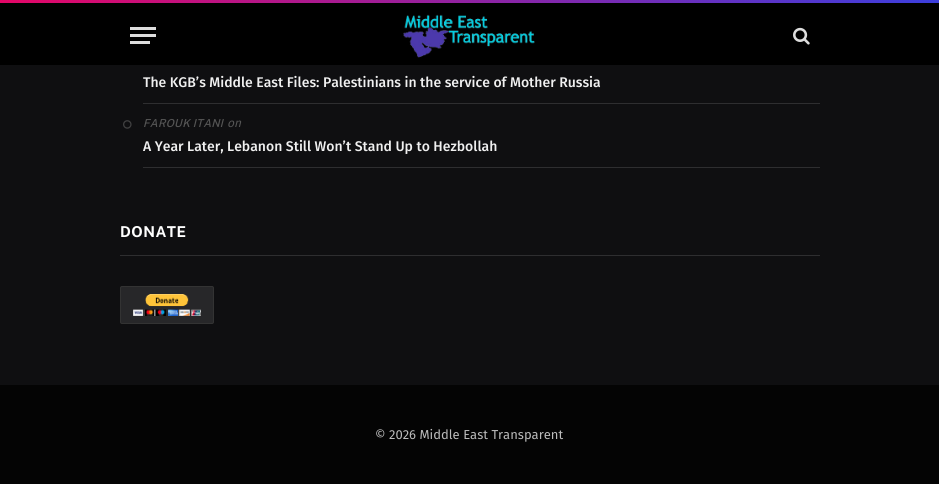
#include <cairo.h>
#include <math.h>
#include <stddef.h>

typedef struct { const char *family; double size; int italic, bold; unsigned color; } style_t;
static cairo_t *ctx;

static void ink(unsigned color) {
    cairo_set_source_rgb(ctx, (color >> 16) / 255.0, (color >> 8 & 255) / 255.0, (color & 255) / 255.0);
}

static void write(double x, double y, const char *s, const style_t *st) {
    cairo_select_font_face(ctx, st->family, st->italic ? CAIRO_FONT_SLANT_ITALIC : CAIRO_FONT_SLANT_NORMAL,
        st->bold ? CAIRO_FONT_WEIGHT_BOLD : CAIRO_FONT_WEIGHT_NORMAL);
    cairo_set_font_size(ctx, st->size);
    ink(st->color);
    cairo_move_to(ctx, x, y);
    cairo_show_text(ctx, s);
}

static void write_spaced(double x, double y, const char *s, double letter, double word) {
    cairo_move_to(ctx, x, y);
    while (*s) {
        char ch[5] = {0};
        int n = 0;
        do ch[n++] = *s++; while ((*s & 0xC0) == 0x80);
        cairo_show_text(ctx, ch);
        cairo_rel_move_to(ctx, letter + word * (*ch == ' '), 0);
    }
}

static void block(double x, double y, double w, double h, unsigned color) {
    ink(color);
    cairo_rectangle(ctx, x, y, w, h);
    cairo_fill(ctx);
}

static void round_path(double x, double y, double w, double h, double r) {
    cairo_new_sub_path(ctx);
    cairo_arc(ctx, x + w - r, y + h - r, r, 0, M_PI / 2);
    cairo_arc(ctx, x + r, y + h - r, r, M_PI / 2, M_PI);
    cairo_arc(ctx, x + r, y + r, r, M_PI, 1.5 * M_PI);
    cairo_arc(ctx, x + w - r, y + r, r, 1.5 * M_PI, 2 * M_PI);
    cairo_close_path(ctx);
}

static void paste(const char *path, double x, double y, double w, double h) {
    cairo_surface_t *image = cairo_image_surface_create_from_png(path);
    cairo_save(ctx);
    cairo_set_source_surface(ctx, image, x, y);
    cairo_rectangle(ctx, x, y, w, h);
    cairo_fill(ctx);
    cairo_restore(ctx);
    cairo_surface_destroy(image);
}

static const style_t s1 = {"Fira Sans Medium", 14, 0, 0, 0xf0f0f0};
static const style_t s2 = {"Fira Sans", 12, 1, 0, 0x555555};
static const style_t s3 = {"Fira Sans", 13, 0, 0, 0xbbbbbb};

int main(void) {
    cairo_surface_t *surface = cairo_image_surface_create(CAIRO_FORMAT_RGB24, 939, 484);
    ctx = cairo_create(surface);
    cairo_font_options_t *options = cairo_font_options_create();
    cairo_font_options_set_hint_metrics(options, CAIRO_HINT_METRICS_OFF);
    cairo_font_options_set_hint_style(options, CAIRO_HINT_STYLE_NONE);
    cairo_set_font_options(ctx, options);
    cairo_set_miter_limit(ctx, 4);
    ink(0x0f0f11);
    cairo_paint(ctx);
    block(0, 3, 939, 62, 0x000000);
    paste("pic1.png", 0, 0, 939, 3);
    block(130, 41, 20, 3, 0xdddddd);
    block(130, 27, 26, 3, 0xdddddd);
    block(130, 34, 26, 3, 0xdddddd);
    paste("pic2.png", 403, 14, 132, 44);
    paste("pic3.png", 793, 27, 17, 18);
    block(143, 103, 677, 1, 0x2e2e30);
    write(143, 87, "The KGB’s Middle East Files: Palestinians in the service of Mother Russia", &s1);
    block(143, 167, 677, 1, 0x2e2e30);
    paste("pic4.png", 123, 120, 9, 9);
    cairo_select_font_face(ctx, "Public Sans Medium", CAIRO_FONT_SLANT_ITALIC, CAIRO_FONT_WEIGHT_NORMAL);
    cairo_set_font_size(ctx, 11);
    ink(0x555555);
    write_spaced(143, 127, "FAROUK ITANI", 0.25, 0);
    write(227, 127, "on", &s2);
    write(143, 151, "A Year Later, Lebanon Still Won’t Stand Up to Hezbollah", &s1);
    block(120, 255, 700, 1, 0x2e2e30);
    cairo_select_font_face(ctx, "Public Sans", CAIRO_FONT_SLANT_NORMAL, CAIRO_FONT_WEIGHT_BOLD);
    cairo_set_font_size(ctx, 15);
    ink(0xffffff);
    write_spaced(120, 237, "DONATE", 0.5, 0);
    ink(0x272729);
    round_path(120.5, 286.5, 93, 37, 1.5);
    cairo_fill_preserve(ctx);
    ink(0x333333);
    cairo_set_line_width(ctx, 1);
    cairo_stroke(ctx);
    paste("pic5.png", 133, 294, 68, 22);
    block(0, 385, 939, 99, 0x040404);
    write(375, 439, "© 2026 Middle East Transparent", &s3);
    cairo_surface_write_to_png(surface, "screenshot.png");
    cairo_font_options_destroy(options);
    cairo_destroy(ctx);
    cairo_surface_destroy(surface);
    return 0;
}
